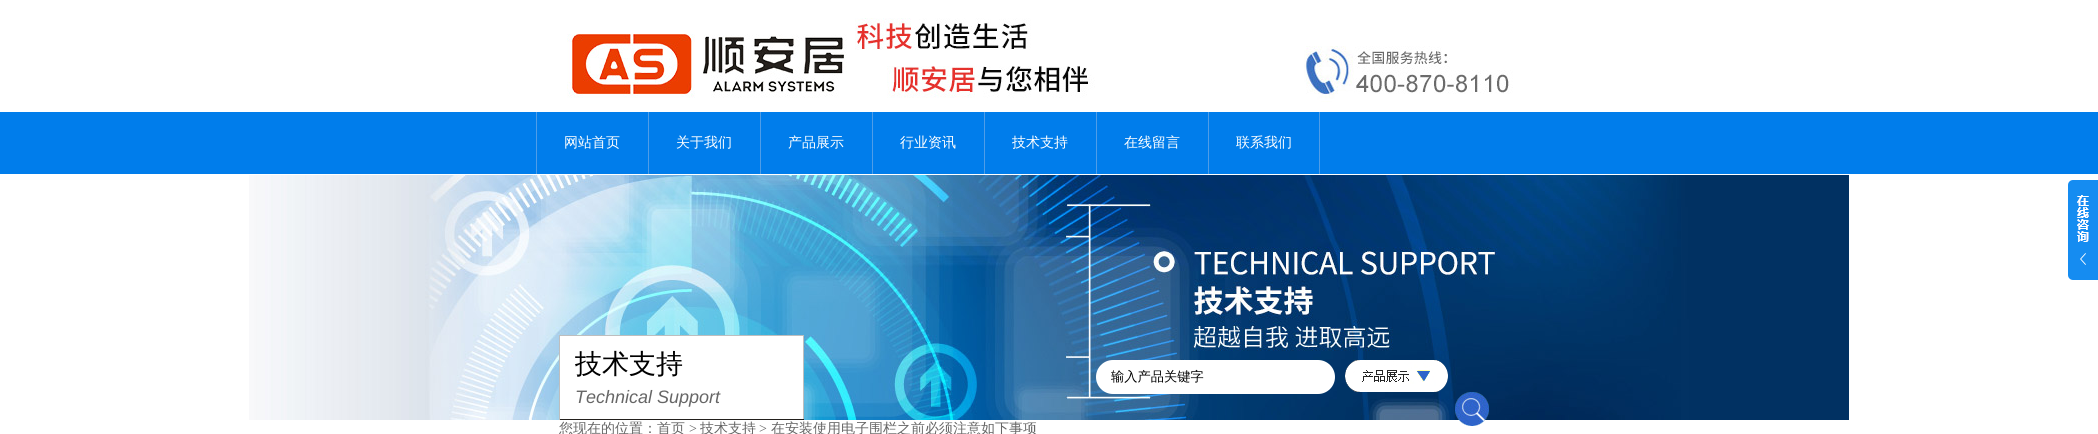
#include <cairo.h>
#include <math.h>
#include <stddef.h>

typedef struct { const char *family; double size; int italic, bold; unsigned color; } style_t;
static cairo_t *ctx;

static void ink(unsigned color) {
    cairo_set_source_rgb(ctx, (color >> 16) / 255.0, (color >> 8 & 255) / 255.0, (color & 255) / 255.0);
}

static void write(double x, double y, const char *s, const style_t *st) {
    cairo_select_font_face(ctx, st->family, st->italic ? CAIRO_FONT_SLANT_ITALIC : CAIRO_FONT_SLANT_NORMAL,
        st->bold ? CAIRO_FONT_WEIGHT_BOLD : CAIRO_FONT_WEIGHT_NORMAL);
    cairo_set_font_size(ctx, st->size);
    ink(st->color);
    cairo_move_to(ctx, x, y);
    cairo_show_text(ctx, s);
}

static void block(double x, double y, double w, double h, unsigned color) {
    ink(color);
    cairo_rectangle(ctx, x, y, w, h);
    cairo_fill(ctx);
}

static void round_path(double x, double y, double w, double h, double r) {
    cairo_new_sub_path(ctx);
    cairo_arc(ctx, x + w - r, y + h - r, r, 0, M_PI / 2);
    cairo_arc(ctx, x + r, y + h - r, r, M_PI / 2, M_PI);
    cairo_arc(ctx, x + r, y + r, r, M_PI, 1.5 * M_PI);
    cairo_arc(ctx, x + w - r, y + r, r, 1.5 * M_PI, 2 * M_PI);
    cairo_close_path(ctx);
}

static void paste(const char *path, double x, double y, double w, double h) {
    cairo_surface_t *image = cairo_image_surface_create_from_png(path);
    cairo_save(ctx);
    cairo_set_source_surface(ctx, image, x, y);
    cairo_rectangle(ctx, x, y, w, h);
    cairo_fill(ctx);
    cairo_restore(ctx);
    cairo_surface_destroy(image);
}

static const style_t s1 = {"WenQuanYi Zen Hei Medium", 14, 0, 0, 0xffffff};
static const style_t s2 = {"WenQuanYi Zen Hei Medium", 27, 0, 0, 0x000000};
static const style_t s3 = {"Liberation Sans", 18, 1, 0, 0x666666};
static const style_t s4 = {"WenQuanYi Zen Hei Medium", 13.25, 0, 0, 0x000000};
static const style_t s5 = {"WenQuanYi Zen Hei Medium", 14, 0, 0, 0x666666};
static const style_t s6 = {"Liberation Serif", 14, 0, 0, 0x666666};

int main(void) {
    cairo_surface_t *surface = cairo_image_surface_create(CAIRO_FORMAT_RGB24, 2098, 434);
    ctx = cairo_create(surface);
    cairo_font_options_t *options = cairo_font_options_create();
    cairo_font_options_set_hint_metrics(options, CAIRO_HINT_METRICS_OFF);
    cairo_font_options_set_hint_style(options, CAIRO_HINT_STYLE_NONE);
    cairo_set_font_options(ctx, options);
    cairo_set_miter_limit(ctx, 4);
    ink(0xffffff);
    cairo_paint(ctx);
    paste("pic1.png", 567, 18, 528, 80);
    paste("pic2.png", 1304, 46, 209, 56);
    block(0, 112, 2098, 62, 0x007deb);
    paste("pic3.png", 536, 112, 1, 62);
    write(564, 147, "网站首页", &s1);
    paste("pic3.png", 648, 112, 1, 62);
    write(676, 147, "关于我们", &s1);
    paste("pic3.png", 760, 112, 1, 62);
    write(788, 147, "产品展示", &s1);
    paste("pic3.png", 872, 112, 1, 62);
    write(900, 147, "行业资讯", &s1);
    paste("pic3.png", 984, 112, 1, 62);
    write(1012, 147, "技术支持", &s1);
    paste("pic3.png", 1096, 112, 1, 62);
    write(1124, 147, "在线留言", &s1);
    paste("pic3.png", 1208, 112, 1, 62);
    paste("pic3.png", 1319, 112, 1, 62);
    write(1236, 147, "联系我们", &s1);
    paste("pic4.png", 249, 175, 1600, 245);
    paste("pic5.png", 2068, 180, 30, 100);
    block(560, 336, 243, 83, 0xffffff);
    block(559, 335, 245, 1, 0xbebebe);
    block(803, 335, 1, 85, 0xbebebe);
    block(559, 419, 245, 1, 0x23201d);
    block(559, 335, 1, 85, 0xbebebe);
    write(575, 373, "技术支持", &s2);
    write(575, 403, "Technical Support", &s3);
    ink(0xffffff);
    round_path(1096, 360, 239, 34, 17);
    cairo_fill(ctx);
    write(1111, 381, "输入产品关键字", &s4);
    paste("pic6.png", 1345, 360, 103, 32);
    paste("pic7.png", 1455, 392, 34, 34);
    write(559, 433, "您现在的位置：首页", &s5);
    write(689, 433, ">", &s6);
    write(700, 433, "技术支持", &s5);
    write(759, 433, ">", &s6);
    write(771, 433, "在安装使用电子围栏之前必须注意如下事项", &s5);
    cairo_surface_write_to_png(surface, "screenshot.png");
    cairo_font_options_destroy(options);
    cairo_destroy(ctx);
    cairo_surface_destroy(surface);
    return 0;
}
